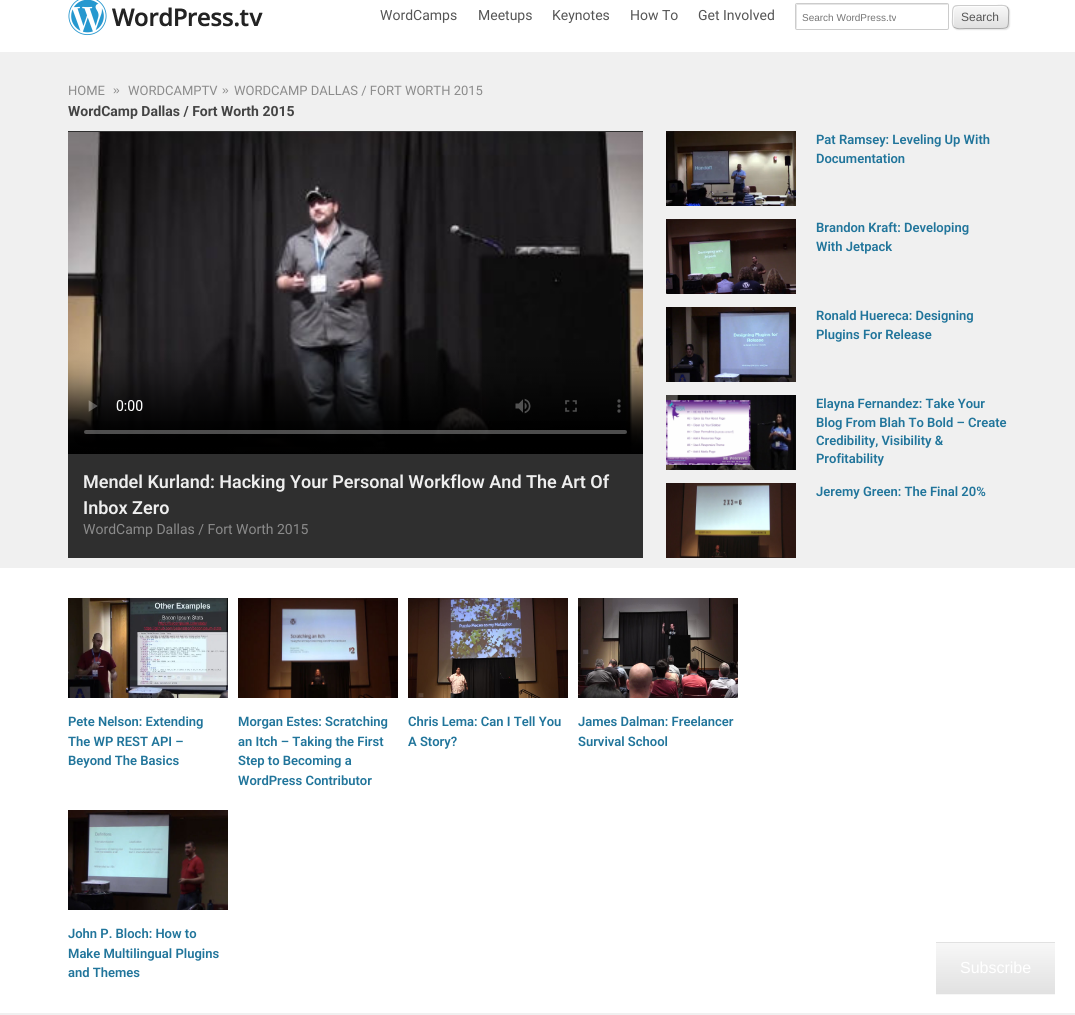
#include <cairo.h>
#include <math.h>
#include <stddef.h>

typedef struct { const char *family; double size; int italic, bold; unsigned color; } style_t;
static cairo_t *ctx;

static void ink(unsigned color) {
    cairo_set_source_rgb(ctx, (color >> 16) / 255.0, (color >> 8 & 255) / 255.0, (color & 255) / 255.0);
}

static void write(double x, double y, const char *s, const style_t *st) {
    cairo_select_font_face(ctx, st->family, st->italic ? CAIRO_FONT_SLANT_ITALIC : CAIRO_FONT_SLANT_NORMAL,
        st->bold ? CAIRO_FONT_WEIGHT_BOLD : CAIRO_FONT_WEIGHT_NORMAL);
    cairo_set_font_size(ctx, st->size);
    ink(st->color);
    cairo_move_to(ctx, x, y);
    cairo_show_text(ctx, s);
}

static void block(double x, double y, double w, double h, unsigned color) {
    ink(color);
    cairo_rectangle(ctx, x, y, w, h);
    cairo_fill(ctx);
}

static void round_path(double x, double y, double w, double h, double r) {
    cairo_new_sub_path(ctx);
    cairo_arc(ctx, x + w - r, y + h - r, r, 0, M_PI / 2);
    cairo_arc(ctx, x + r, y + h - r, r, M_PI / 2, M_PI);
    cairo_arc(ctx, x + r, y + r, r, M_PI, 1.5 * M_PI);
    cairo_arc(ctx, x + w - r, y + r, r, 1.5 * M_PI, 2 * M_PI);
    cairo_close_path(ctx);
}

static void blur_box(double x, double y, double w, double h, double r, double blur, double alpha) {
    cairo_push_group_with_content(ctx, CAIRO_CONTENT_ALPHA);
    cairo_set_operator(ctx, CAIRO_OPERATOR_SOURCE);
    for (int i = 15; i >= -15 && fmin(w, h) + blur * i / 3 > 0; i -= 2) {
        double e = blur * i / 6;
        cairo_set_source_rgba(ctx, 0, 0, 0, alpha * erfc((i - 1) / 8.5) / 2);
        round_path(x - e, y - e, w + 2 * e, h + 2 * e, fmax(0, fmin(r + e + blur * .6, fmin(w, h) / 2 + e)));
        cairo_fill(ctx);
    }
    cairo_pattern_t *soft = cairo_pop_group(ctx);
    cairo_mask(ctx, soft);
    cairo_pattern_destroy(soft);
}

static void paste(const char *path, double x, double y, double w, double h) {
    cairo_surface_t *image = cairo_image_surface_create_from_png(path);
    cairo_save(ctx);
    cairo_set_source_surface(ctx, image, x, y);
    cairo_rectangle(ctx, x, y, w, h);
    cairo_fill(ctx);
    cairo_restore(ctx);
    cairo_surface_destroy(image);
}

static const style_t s1 = {"Roboto", 14, 0, 0, 0x555555};
static const style_t s2 = {"Liberation Sans", 10, 0, 0, 0x757575};
static const style_t s3 = {"Liberation Sans", 12, 0, 0, 0x555555};
static const style_t s4 = {"Roboto", 13, 0, 0, 0x8b8b8b};
static const style_t s5 = {"Liberation Sans", 12, 0, 0, 0x8b8b8b};
static const style_t s6 = {"Roboto", 14, 0, 1, 0x444444};
static const style_t s7 = {"Roboto SemiBold", 13, 0, 0, 0x21759b};
static const style_t s8 = {"Roboto SemiBold", 18, 0, 0, 0xeeeeee};
static const style_t s9 = {"Roboto", 14, 0, 0, 0x8b8b8b};
static const style_t s10 = {"Liberation Sans", 16, 0, 0, 0xffffff};

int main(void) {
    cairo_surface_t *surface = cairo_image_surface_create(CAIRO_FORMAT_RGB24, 1075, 1015);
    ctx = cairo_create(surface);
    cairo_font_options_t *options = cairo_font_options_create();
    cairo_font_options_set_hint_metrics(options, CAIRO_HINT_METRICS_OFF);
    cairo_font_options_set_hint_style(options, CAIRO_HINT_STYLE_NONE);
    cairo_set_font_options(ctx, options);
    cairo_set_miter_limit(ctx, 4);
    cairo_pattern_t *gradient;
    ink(0xffffff);
    cairo_paint(ctx);
    paste("pic1.png", 68, 0, 195, 36);
    write(380, 20, "WordCamps", &s1);
    write(478, 20, "Meetups", &s1);
    write(552, 20, "Keynotes", &s1);
    write(630, 20, "How To", &s1);
    write(698, 20, "Get Involved", &s1);
    ink(0xe6e6e6);
    cairo_new_path(ctx);
    cairo_move_to(ctx, 798, 5);
    cairo_line_to(ctx, 948, 5);
    cairo_line_to(ctx, 947, 4);
    cairo_line_to(ctx, 797, 4);
    cairo_line_to(ctx, 796, 5);
    cairo_curve_to(ctx, 796, 15, 795, 29, 797, 29);
    cairo_line_to(ctx, 797, 5);
    cairo_close_path(ctx);
    cairo_fill(ctx);
    round_path(795.5, 3.5, 153, 26, 1.5);
    ink(0xcccccc);
    cairo_set_line_width(ctx, 1);
    cairo_stroke(ctx);
    write(802, 21, "Search WordPress.tv", &s2);
    ink(0x000000);
    blur_box(953, 6, 57, 24, 5, 0.5, 0.1);
    cairo_save(ctx);
    round_path(952, 5, 57, 24, 5);
    cairo_clip(ctx);
    gradient = cairo_pattern_create_linear(953, -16, 953, 6);
    cairo_pattern_add_color_stop_rgba(gradient, 0, 0.969, 0.969, 0.969, 1);
    cairo_pattern_add_color_stop_rgba(gradient, 1, 0.882, 0.882, 0.882, 1);
    cairo_set_source(ctx, gradient);
    cairo_pattern_destroy(gradient);
    cairo_rectangle(ctx, 952, 5, 57, 1);
    cairo_fill(ctx);
    gradient = cairo_pattern_create_linear(953, 6, 953, 28);
    cairo_pattern_add_color_stop_rgba(gradient, 0, 0.969, 0.969, 0.969, 1);
    cairo_pattern_add_color_stop_rgba(gradient, 1, 0.882, 0.882, 0.882, 1);
    cairo_set_source(ctx, gradient);
    cairo_pattern_destroy(gradient);
    cairo_rectangle(ctx, 952, 6, 57, 22);
    cairo_fill(ctx);
    gradient = cairo_pattern_create_linear(953, 28, 953, 50);
    cairo_pattern_add_color_stop_rgba(gradient, 0, 0.969, 0.969, 0.969, 1);
    cairo_pattern_add_color_stop_rgba(gradient, 1, 0.882, 0.882, 0.882, 1);
    cairo_set_source(ctx, gradient);
    cairo_pattern_destroy(gradient);
    cairo_rectangle(ctx, 952, 28, 57, 1);
    cairo_fill(ctx);
    cairo_restore(ctx);
    cairo_set_source_rgba(ctx, 1, 1, 1, 0.7);
    cairo_new_path(ctx);
    cairo_move_to(ctx, 958, 7);
    cairo_line_to(ctx, 1005, 7);
    cairo_line_to(ctx, 1007, 8);
    cairo_curve_to(ctx, 1007, 7, 1005, 6, 1004, 6);
    cairo_line_to(ctx, 957, 6);
    cairo_curve_to(ctx, 955, 6, 953, 8, 953, 10);
    cairo_line_to(ctx, 953, 24);
    cairo_curve_to(ctx, 953, 25, 954, 27, 955, 27);
    cairo_curve_to(ctx, 953, 25, 954, 21, 954, 18);
    cairo_curve_to(ctx, 954, 15, 953, 7, 958, 7);
    cairo_close_path(ctx);
    cairo_fill(ctx);
    cairo_new_path(ctx);
    cairo_move_to(ctx, 1007, 7);
    cairo_curve_to(ctx, 1009.5, 9.5, 1008.5, 14, 1008.5, 17);
    cairo_curve_to(ctx, 1008.5, 29, 1008.5, 28.5, 996, 28.5);
    cairo_line_to(ctx, 965, 28.5);
    cairo_curve_to(ctx, 962.5, 28.5, 956.5, 29.5, 954, 27);
    ink(0xaaaaaa);
    cairo_stroke(ctx);
    cairo_new_path(ctx);
    cairo_move_to(ctx, 954, 27);
    cairo_curve_to(ctx, 951.5, 24.5, 952.5, 20, 952.5, 17);
    cairo_curve_to(ctx, 952.5, 5, 952.5, 5.5, 965, 5.5);
    cairo_line_to(ctx, 996, 5.5);
    cairo_curve_to(ctx, 998.5, 5.5, 1004.5, 4.5, 1007, 7);
    ink(0xcccccc);
    cairo_stroke(ctx);
    write(961, 21, "Search", &s3);
    block(0, 52, 1075, 516, 0xf0f0f0);
    write(68, 95, "HOME", &s4);
    write(113, 94, "»", &s5);
    write(128, 95, "WORDCAMPTV", &s4);
    write(222, 94, "»", &s5);
    write(234, 95, "WORDCAMP DALLAS / FORT WORTH 2015", &s4);
    write(68, 116, "WordCamp Dallas / Fort Worth 2015", &s6);
    paste("pic2.png", 666, 131, 130, 75);
    write(816, 144, "Pat Ramsey: Leveling Up With", &s7);
    write(816, 163, "Documentation", &s7);
    paste("pic3.png", 666, 219, 130, 75);
    write(816, 232, "Brandon Kraft: Developing", &s7);
    write(816, 251, "With Jetpack", &s7);
    paste("pic4.png", 666, 307, 130, 75);
    write(816, 320, "Ronald Huereca: Designing", &s7);
    write(816, 339, "Plugins For Release", &s7);
    paste("pic5.png", 666, 395, 130, 75);
    write(816, 408, "Elayna Fernandez: Take Your", &s7);
    write(816, 427, "Blog From Blah To Bold – Create", &s7);
    write(816, 445, "Credibility, Visibility &", &s7);
    write(816, 463, "Profitability", &s7);
    paste("pic6.png", 666, 483, 130, 75);
    write(816, 496, "Jeremy Green: The Final 20%", &s7);
    block(68, 131, 575, 427, 0x2f2f2f);
    paste("pic7.png", 68, 132, 575, 322);
    write(83, 488, "Mendel Kurland: Hacking Your Personal Workflow And The Art Of", &s8);
    write(83, 514, "Inbox Zero", &s8);
    write(83, 534, "WordCamp Dallas / Fort Worth 2015", &s9);
    paste("pic8.png", 68, 598, 160, 100);
    write(68, 726, "Pete Nelson: Extending", &s7);
    write(68, 746, "The WP REST API –", &s7);
    write(68, 765, "Beyond The Basics", &s7);
    paste("pic9.png", 238, 598, 160, 100);
    write(238, 726, "Morgan Estes: Scratching", &s7);
    write(238, 746, "an Itch – Taking the First", &s7);
    write(238, 765, "Step to Becoming a", &s7);
    write(238, 785, "WordPress Contributor", &s7);
    paste("pic10.png", 408, 598, 160, 100);
    write(408, 726, "Chris Lema: Can I Tell You", &s7);
    write(408, 746, "A Story?", &s7);
    paste("pic11.png", 578, 598, 160, 100);
    write(578, 726, "James Dalman: Freelancer", &s7);
    write(578, 746, "Survival School", &s7);
    paste("pic12.png", 68, 810, 160, 100);
    write(68, 938, "John P. Bloch: How to", &s7);
    write(68, 958, "Make Multilingual Plugins", &s7);
    write(68, 977, "and Themes", &s7);
    block(0, 1013, 1075, 2, 0xf0f0f0);
    gradient = cairo_pattern_create_linear(937, 892, 937, 943);
    cairo_pattern_add_color_stop_rgba(gradient, 0, 0.969, 0.969, 0.969, 1);
    cairo_pattern_add_color_stop_rgba(gradient, 1, 0.882, 0.882, 0.882, 1);
    cairo_set_source(ctx, gradient);
    cairo_pattern_destroy(gradient);
    cairo_rectangle(ctx, 936, 942, 119, 1);
    cairo_fill(ctx);
    gradient = cairo_pattern_create_linear(937, 943, 937, 994);
    cairo_pattern_add_color_stop_rgba(gradient, 0, 0.969, 0.969, 0.969, 1);
    cairo_pattern_add_color_stop_rgba(gradient, 1, 0.882, 0.882, 0.882, 1);
    cairo_set_source(ctx, gradient);
    cairo_pattern_destroy(gradient);
    cairo_rectangle(ctx, 936, 943, 119, 51);
    cairo_fill(ctx);
    gradient = cairo_pattern_create_linear(937, 994, 937, 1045);
    cairo_pattern_add_color_stop_rgba(gradient, 0, 0.969, 0.969, 0.969, 1);
    cairo_pattern_add_color_stop_rgba(gradient, 1, 0.882, 0.882, 0.882, 1);
    cairo_set_source(ctx, gradient);
    cairo_pattern_destroy(gradient);
    cairo_rectangle(ctx, 936, 994, 119, 1);
    cairo_fill(ctx);
    write(960, 973, "Subscribe", &s10);
    cairo_surface_write_to_png(surface, "screenshot.png");
    cairo_font_options_destroy(options);
    cairo_destroy(ctx);
    cairo_surface_destroy(surface);
    return 0;
}
